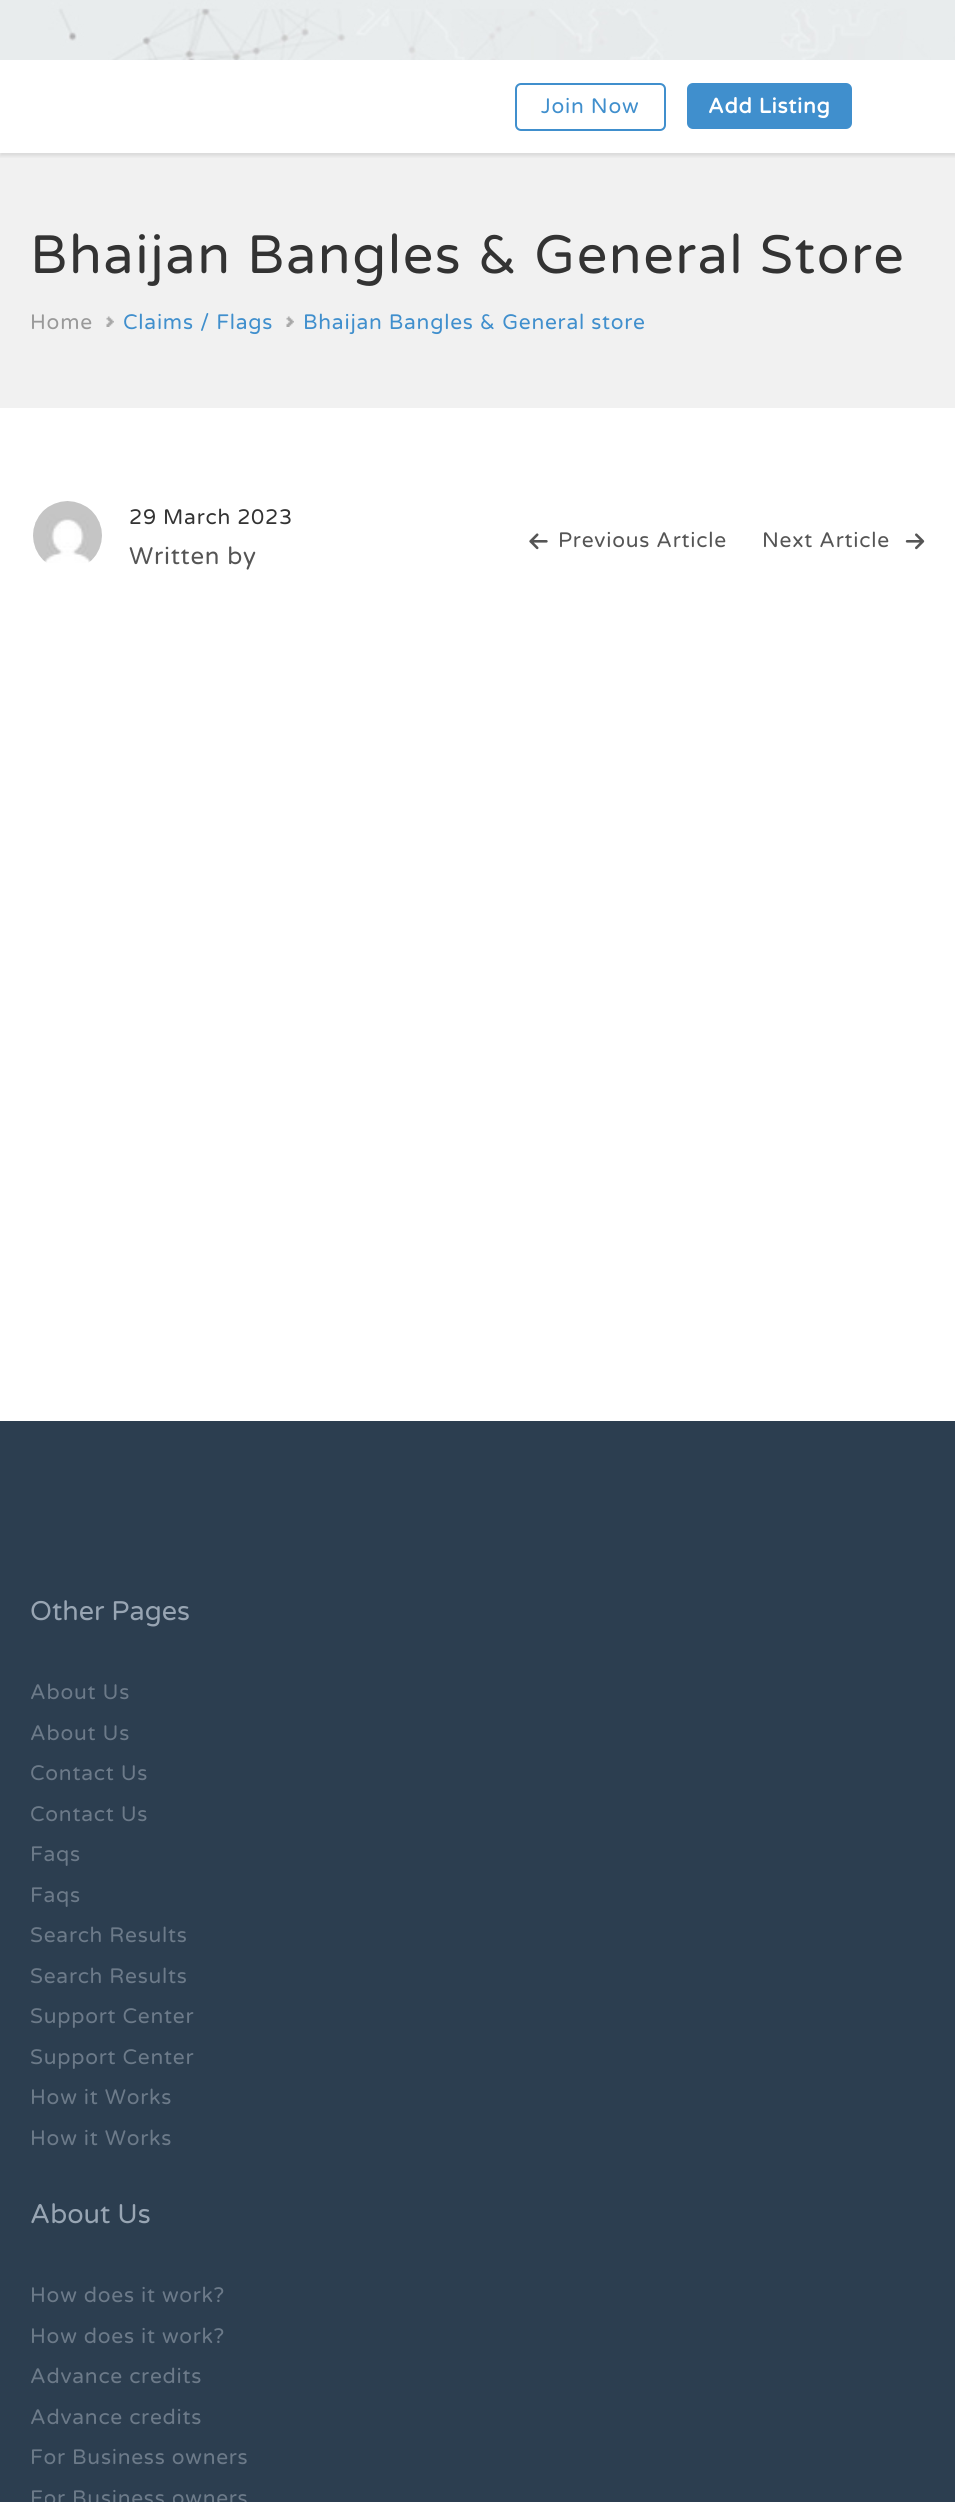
#include <cairo.h>
#include <math.h>
#include <stddef.h>

typedef struct { const char *family; double size; int italic, bold; unsigned color; } style_t;
static cairo_t *ctx;

static void ink(unsigned color) {
    cairo_set_source_rgb(ctx, (color >> 16) / 255.0, (color >> 8 & 255) / 255.0, (color & 255) / 255.0);
}

static void write(double x, double y, const char *s, const style_t *st) {
    cairo_select_font_face(ctx, st->family, st->italic ? CAIRO_FONT_SLANT_ITALIC : CAIRO_FONT_SLANT_NORMAL,
        st->bold ? CAIRO_FONT_WEIGHT_BOLD : CAIRO_FONT_WEIGHT_NORMAL);
    cairo_set_font_size(ctx, st->size);
    ink(st->color);
    cairo_move_to(ctx, x, y);
    cairo_show_text(ctx, s);
}

static void write_spaced(double x, double y, const char *s, double letter, double word) {
    cairo_move_to(ctx, x, y);
    while (*s) {
        char ch[5] = {0};
        int n = 0;
        do ch[n++] = *s++; while ((*s & 0xC0) == 0x80);
        cairo_show_text(ctx, ch);
        cairo_rel_move_to(ctx, letter + word * (*ch == ' '), 0);
    }
}

static void block(double x, double y, double w, double h, unsigned color) {
    ink(color);
    cairo_rectangle(ctx, x, y, w, h);
    cairo_fill(ctx);
}

static void round_path(double x, double y, double w, double h, double r) {
    cairo_new_sub_path(ctx);
    cairo_arc(ctx, x + w - r, y + h - r, r, 0, M_PI / 2);
    cairo_arc(ctx, x + r, y + h - r, r, M_PI / 2, M_PI);
    cairo_arc(ctx, x + r, y + r, r, M_PI, 1.5 * M_PI);
    cairo_arc(ctx, x + w - r, y + r, r, 1.5 * M_PI, 2 * M_PI);
    cairo_close_path(ctx);
}

static void blur_box(double x, double y, double w, double h, double r, double blur, double alpha) {
    cairo_push_group_with_content(ctx, CAIRO_CONTENT_ALPHA);
    cairo_set_operator(ctx, CAIRO_OPERATOR_SOURCE);
    for (int i = 15; i >= -15 && fmin(w, h) + blur * i / 3 > 0; i -= 2) {
        double e = blur * i / 6;
        cairo_set_source_rgba(ctx, 0, 0, 0, alpha * erfc((i - 1) / 8.5) / 2);
        round_path(x - e, y - e, w + 2 * e, h + 2 * e, fmax(0, fmin(r + e + blur * .6, fmin(w, h) / 2 + e)));
        cairo_fill(ctx);
    }
    cairo_pattern_t *soft = cairo_pop_group(ctx);
    cairo_mask(ctx, soft);
    cairo_pattern_destroy(soft);
}

static void paste(const char *path, double x, double y, double w, double h) {
    cairo_surface_t *image = cairo_image_surface_create_from_png(path);
    cairo_save(ctx);
    cairo_set_source_surface(ctx, image, x, y);
    cairo_rectangle(ctx, x, y, w, h);
    cairo_fill(ctx);
    cairo_restore(ctx);
    cairo_surface_destroy(image);
}

static const style_t s1 = {"Varela Round", 27, 0, 0, 0x98a5b3};

int main(void) {
    cairo_surface_t *surface = cairo_image_surface_create(CAIRO_FORMAT_RGB24, 955, 2502);
    ctx = cairo_create(surface);
    cairo_font_options_t *options = cairo_font_options_create();
    cairo_font_options_set_hint_metrics(options, CAIRO_HINT_METRICS_OFF);
    cairo_font_options_set_hint_style(options, CAIRO_HINT_STYLE_NONE);
    cairo_set_font_options(ctx, options);
    cairo_set_miter_limit(ctx, 4);
    ink(0xffffff);
    cairo_paint(ctx);
    paste("pic1.png", 0, 0, 955, 60);
    block(0, 153, 955, 255, 0xf1f1f1);
    cairo_save(ctx);
    cairo_rectangle(ctx, 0, 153, 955, 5);
    cairo_clip(ctx);
    ink(0x000000);
    blur_box(0, 63, 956, 93, 0, 2, 0.1);
    cairo_restore(ctx);
    round_path(516, 84, 149, 46, 5);
    ink(0x408fcd);
    cairo_stroke(ctx);
    cairo_select_font_face(ctx, "Varela Round", CAIRO_FONT_SLANT_NORMAL, CAIRO_FONT_WEIGHT_NORMAL);
    cairo_set_font_size(ctx, 21);
    write_spaced(541, 113, "Join Now", 0.75, 0);
    round_path(688, 84, 163, 44, 5);
    cairo_fill_preserve(ctx);
    cairo_stroke(ctx);
    cairo_select_font_face(ctx, "Varela Round", CAIRO_FONT_SLANT_NORMAL, CAIRO_FONT_WEIGHT_BOLD);
    ink(0xffffff);
    write_spaced(708, 113, "Add Listing", 0.75, 0);
    cairo_select_font_face(ctx, "Varela Round", CAIRO_FONT_SLANT_NORMAL, CAIRO_FONT_WEIGHT_NORMAL);
    cairo_set_font_size(ctx, 54);
    ink(0x333333);
    write_spaced(30, 273, "Bhaijan Bangles & General Store", 1.5, 0);
    cairo_set_font_size(ctx, 21);
    ink(0x999999);
    write_spaced(30, 329, "Home", 0.75, 0);
    paste("pic2.png", 106, 316, 8, 11);
    ink(0x408fcd);
    write_spaced(123, 329, "Claims / Flags", 0.75, 0);
    paste("pic3.png", 286, 316, 8, 11);
    write_spaced(303, 329, "Bhaijan Bangles & General store", 0.75, 0);
    paste("pic4.png", 33, 501, 69, 62);
    ink(0x333333);
    write_spaced(129, 524, "29 March 2023", 0.75, 0);
    cairo_set_font_size(ctx, 24);
    ink(0x555555);
    write_spaced(129, 564, "Written by", 0.75, 0);
    paste("pic5.png", 529, 533, 19, 17);
    cairo_set_font_size(ctx, 21);
    write_spaced(558, 547, "Previous Article", 0.75, 0);
    write_spaced(762, 547, "Next Article", 0.75, 0);
    paste("pic6.png", 905, 533, 20, 17);
    block(0, 1421, 955, 1081, 0x2c3e50);
    write(30, 1620, "Other Pages", &s1);
    cairo_set_font_size(ctx, 21);
    ink(0x6c7a89);
    write_spaced(30, 1699, "About Us", 0.75, 0);
    write_spaced(30, 1740, "About Us", 0.75, 0);
    write_spaced(30, 1780, "Contact Us", 0.75, 0);
    write_spaced(30, 1821, "Contact Us", 0.75, 0);
    write_spaced(30, 1861, "Faqs", 0.75, 0);
    write_spaced(30, 1902, "Faqs", 0.75, 0);
    write_spaced(30, 1942, "Search Results", 0.75, 0);
    write_spaced(30, 1983, "Search Results", 0.75, 0);
    write_spaced(30, 2023, "Support Center", 0.75, 0);
    write_spaced(30, 2064, "Support Center", 0.75, 0);
    write_spaced(30, 2104, "How it Works", 0.75, 0);
    write_spaced(30, 2145, "How it Works", 0.75, 0);
    write(30, 2223, "About Us", &s1);
    cairo_set_font_size(ctx, 21);
    ink(0x6c7a89);
    write_spaced(30, 2302, "How does it work?", 0.75, 0);
    write_spaced(30, 2343, "How does it work?", 0.75, 0);
    write_spaced(30, 2383, "Advance credits", 0.75, 0);
    write_spaced(30, 2424, "Advance credits", 0.75, 0);
    write_spaced(30, 2464, "For Business owners", 0.75, 0);
    write_spaced(30, 2505, "For Business owners", 0.75, 0);
    cairo_surface_write_to_png(surface, "screenshot.png");
    cairo_font_options_destroy(options);
    cairo_destroy(ctx);
    cairo_surface_destroy(surface);
    return 0;
}
